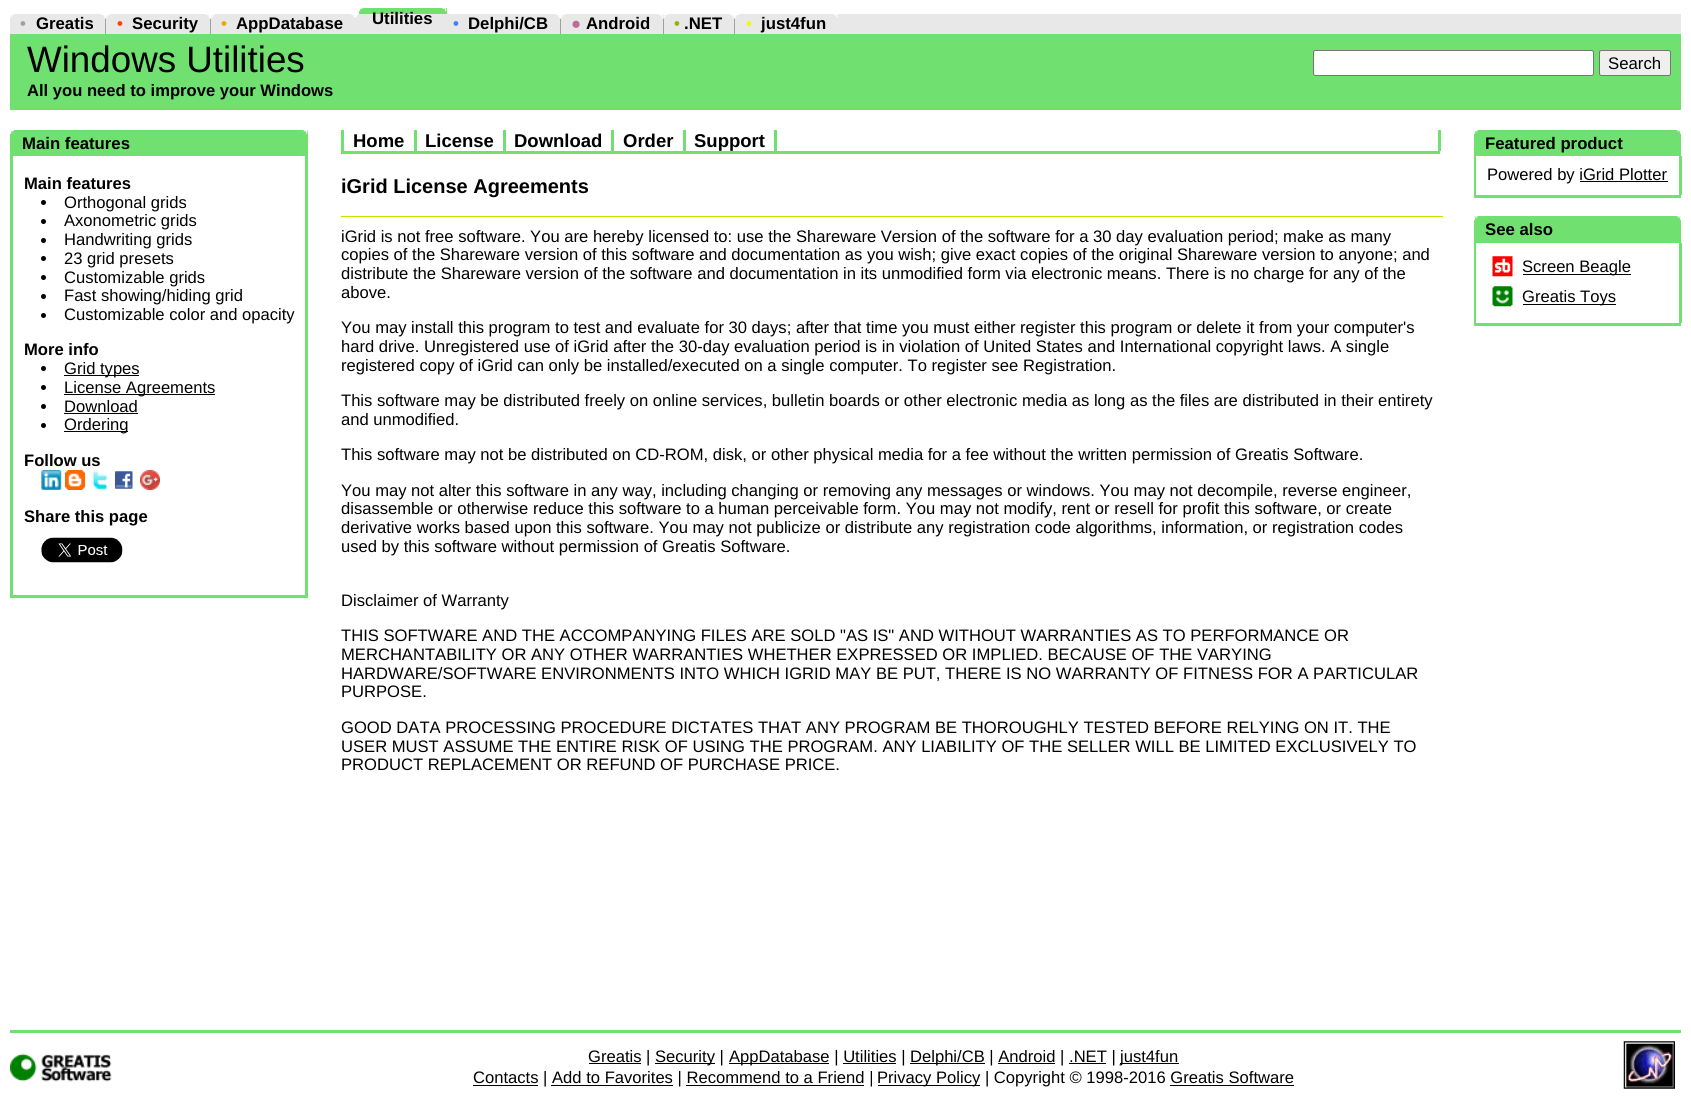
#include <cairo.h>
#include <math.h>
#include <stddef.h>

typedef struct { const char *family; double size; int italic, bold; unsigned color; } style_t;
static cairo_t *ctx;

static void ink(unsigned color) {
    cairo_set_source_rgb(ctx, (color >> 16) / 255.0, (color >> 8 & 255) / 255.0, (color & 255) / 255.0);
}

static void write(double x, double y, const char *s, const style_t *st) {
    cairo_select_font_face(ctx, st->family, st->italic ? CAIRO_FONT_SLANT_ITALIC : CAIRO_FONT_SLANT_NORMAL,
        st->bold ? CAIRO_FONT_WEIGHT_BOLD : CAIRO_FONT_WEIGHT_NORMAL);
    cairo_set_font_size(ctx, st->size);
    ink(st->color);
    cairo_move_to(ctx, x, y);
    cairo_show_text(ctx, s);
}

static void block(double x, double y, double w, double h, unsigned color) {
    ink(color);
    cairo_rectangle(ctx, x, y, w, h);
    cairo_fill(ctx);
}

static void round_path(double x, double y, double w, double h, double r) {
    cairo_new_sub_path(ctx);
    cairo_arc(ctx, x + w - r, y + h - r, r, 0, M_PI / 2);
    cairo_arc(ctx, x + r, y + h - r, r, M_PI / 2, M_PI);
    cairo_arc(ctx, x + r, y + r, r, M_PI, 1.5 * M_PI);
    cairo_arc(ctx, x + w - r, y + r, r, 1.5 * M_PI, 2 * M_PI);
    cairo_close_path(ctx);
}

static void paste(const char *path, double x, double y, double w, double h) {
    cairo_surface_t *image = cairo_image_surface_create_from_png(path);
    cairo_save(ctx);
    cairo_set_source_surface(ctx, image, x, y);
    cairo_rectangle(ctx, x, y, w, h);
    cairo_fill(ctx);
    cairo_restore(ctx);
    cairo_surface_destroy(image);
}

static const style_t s1 = {"Liberation Sans", 16.75, 0, 1, 0x000000};
static const style_t s2 = {"Liberation Sans", 16.75, 0, 1, 0xa0a0a0};
static const style_t s3 = {"Liberation Sans", 16.75, 0, 1, 0xff4000};
static const style_t s4 = {"Liberation Sans", 16.75, 0, 1, 0xeda600};
static const style_t s5 = {"Liberation Sans", 16.75, 0, 1, 0x4080ff};
static const style_t s6 = {"Liberation Sans", 16.75, 0, 1, 0xc36b94};
static const style_t s7 = {"Liberation Sans", 16.75, 0, 1, 0x95b300};
static const style_t s8 = {"Liberation Sans", 16.75, 0, 1, 0xf8f800};
static const style_t s9 = {"Liberation Sans", 36.75, 0, 0, 0x000000};
static const style_t s10 = {"Liberation Sans", 16.6, 0, 1, 0x000000};
static const style_t s11 = {"Liberation Sans", 16.75, 0, 0, 0x000000};
static const style_t s12 = {"Liberation Sans", 16.6, 0, 0, 0x000000};
static const style_t s13 = {"Liberation Sans", 18.5, 0, 1, 0x000000};
static const style_t s14 = {"Liberation Sans", 20, 0, 1, 0x000000};

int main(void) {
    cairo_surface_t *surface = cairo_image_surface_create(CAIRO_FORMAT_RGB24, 1691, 1099);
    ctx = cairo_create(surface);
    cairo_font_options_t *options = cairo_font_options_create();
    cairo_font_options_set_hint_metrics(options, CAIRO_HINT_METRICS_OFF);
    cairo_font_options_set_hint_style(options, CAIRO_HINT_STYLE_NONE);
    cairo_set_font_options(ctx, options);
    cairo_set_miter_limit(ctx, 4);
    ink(0xffffff);
    cairo_paint(ctx);
    block(359, 8, 88, 6, 0x70e070);
    paste("pic1.png", 359, 8, 4, 4);
    paste("pic2.png", 442, 8, 5, 4);
    block(10, 14, 1671, 20, 0xe8e8e8);
    write(372, 24, "Utilities", &s1);
    paste("pic3.png", 10, 14, 4, 4);
    paste("pic4.png", 101, 14, 4, 4);
    block(105, 14, 1, 20, 0xa0a0a0);
    paste("pic5.png", 105, 14, 2, 5);
    paste("pic6.png", 106, 14, 4, 4);
    paste("pic4.png", 206, 14, 4, 4);
    block(210, 14, 1, 20, 0xa0a0a0);
    paste("pic5.png", 210, 14, 2, 5);
    paste("pic6.png", 211, 14, 4, 4);
    paste("pic4.png", 351, 14, 4, 4);
    paste("pic3.png", 355, 14, 4, 4);
    paste("pic4.png", 556, 14, 4, 4);
    block(560, 14, 1, 20, 0xa0a0a0);
    paste("pic5.png", 560, 14, 2, 5);
    paste("pic6.png", 561, 14, 4, 4);
    paste("pic7.png", 658, 14, 5, 4);
    block(663, 14, 1, 20, 0xa0a0a0);
    paste("pic8.png", 662, 14, 2, 5);
    paste("pic9.png", 663, 14, 5, 4);
    paste("pic10.png", 730, 14, 4, 4);
    write(20, 29, "•", &s2);
    write(36, 29, "Greatis", &s1);
    write(117, 29, "•", &s3);
    write(132, 29, "Security", &s1);
    write(221, 29, "•", &s4);
    write(236, 29, "AppDatabase", &s1);
    write(453, 29, "•", &s5);
    write(468, 29, "Delphi/CB", &s1);
    write(571, 29, "●", &s6);
    write(586, 29, "Android", &s1);
    write(674, 29, "•", &s7);
    write(684, 29, ".NET", &s1);
    block(734, 14, 1, 20, 0xa0a0a0);
    paste("pic11.png", 733, 14, 2, 5);
    paste("pic3.png", 735, 14, 4, 4);
    write(746, 29, "•", &s8);
    write(761, 29, "just4fun", &s1);
    paste("pic7.png", 833, 14, 5, 4);
    block(10, 34, 1671, 76, 0x70e070);
    write(27, 72, "Windows Utilities", &s9);
    write(27, 96, "All you need to improve your Windows", &s10);
    ink(0xffffff);
    round_path(1313.5, 50.5, 280, 25, 2);
    cairo_fill_preserve(ctx);
    ink(0x767676);
    cairo_set_line_width(ctx, 1);
    cairo_stroke(ctx);
    ink(0xefefef);
    round_path(1599.5, 50.5, 71, 25, 2);
    cairo_fill_preserve(ctx);
    ink(0x767676);
    cairo_stroke(ctx);
    write(1608, 69, "Search", &s11);
    block(10, 130, 298, 26, 0x70e070);
    paste("pic12.png", 10, 130, 4, 4);
    paste("pic13.png", 303, 130, 5, 4);
    write(22, 149, "Main features", &s1);
    block(10, 156, 3, 439, 0x70e070);
    write(24, 189, "Main features", &s10);
    cairo_new_path(ctx);
    cairo_arc(ctx, 43.5, 202.5, 2.5, 0, 2 * M_PI);
    cairo_fill(ctx);
    write(64, 208, "Orthogonal grids", &s12);
    cairo_new_path(ctx);
    cairo_arc(ctx, 43.5, 221.5, 2.5, 0, 2 * M_PI);
    cairo_fill(ctx);
    write(64, 226, "Axonometric grids", &s12);
    cairo_new_path(ctx);
    cairo_arc(ctx, 43.5, 240.5, 2.5, 0, 2 * M_PI);
    cairo_fill(ctx);
    write(64, 245, "Handwriting grids", &s12);
    cairo_new_path(ctx);
    cairo_arc(ctx, 43.5, 258.5, 2.5, 0, 2 * M_PI);
    cairo_fill(ctx);
    write(64, 264, "23 grid presets", &s12);
    cairo_new_path(ctx);
    cairo_arc(ctx, 43.5, 277.5, 2.5, 0, 2 * M_PI);
    cairo_fill(ctx);
    write(64, 283, "Customizable grids", &s12);
    cairo_new_path(ctx);
    cairo_arc(ctx, 43.5, 296.5, 2.5, 0, 2 * M_PI);
    cairo_fill(ctx);
    write(64, 301, "Fast showing/hiding grid", &s12);
    cairo_new_path(ctx);
    cairo_arc(ctx, 43.5, 315.5, 2.5, 0, 2 * M_PI);
    cairo_fill(ctx);
    write(64, 320, "Customizable color and opacity", &s12);
    write(24, 355, "More info", &s10);
    cairo_new_path(ctx);
    cairo_arc(ctx, 43.5, 368.5, 2.5, 0, 2 * M_PI);
    cairo_fill(ctx);
    block(64, 375, 75, 1, 0x000000);
    write(64, 374, "Grid types", &s12);
    cairo_new_path(ctx);
    cairo_arc(ctx, 43.5, 387.5, 2.5, 0, 2 * M_PI);
    cairo_fill(ctx);
    block(64, 394, 151, 1, 0x000000);
    write(64, 393, "License Agreements", &s12);
    cairo_new_path(ctx);
    cairo_arc(ctx, 43.5, 406.5, 2.5, 0, 2 * M_PI);
    cairo_fill(ctx);
    write(64, 412, "Download", &s12);
    block(64, 413, 74, 1, 0x000000);
    cairo_new_path(ctx);
    cairo_arc(ctx, 43.5, 425.5, 2.5, 0, 2 * M_PI);
    cairo_fill(ctx);
    block(64, 431, 64, 1, 0x000000);
    write(64, 430, "Ordering", &s12);
    write(24, 466, "Follow us", &s10);
    paste("pic14.png", 41, 470, 21, 20);
    paste("pic15.png", 65, 470, 20, 20);
    paste("pic16.png", 92, 470, 16, 20);
    paste("pic17.png", 115, 471, 18, 18);
    paste("pic18.png", 140, 470, 20, 20);
    write(24, 522, "Share this page", &s10);
    paste("pic19.png", 41, 537, 82, 26);
    block(305, 156, 3, 439, 0x70e070);
    block(10, 595, 298, 3, 0x70e070);
    block(341, 130, 3, 21, 0x70e070);
    write(353, 147, "Home", &s13);
    block(414, 130, 3, 21, 0x70e070);
    write(425, 147, "License", &s13);
    block(503, 130, 3, 21, 0x70e070);
    write(514, 147, "Download", &s13);
    block(611, 130, 3, 21, 0x70e070);
    write(623, 147, "Order", &s13);
    block(683, 130, 3, 21, 0x70e070);
    write(694, 147, "Support", &s13);
    block(774, 130, 3, 21, 0x70e070);
    block(1438, 130, 3, 21, 0x70e070);
    block(341, 151, 1099, 3, 0x70e070);
    write(341, 193, "iGrid License Agreements", &s14);
    block(341, 216, 1102, 1, 0xc0e600);
    write(341, 242, "iGrid is not free software. You are hereby licensed to: use the Shareware Version of the software for a 30 day evaluation period; make as many", &s12);
    write(341, 260, "copies of the Shareware version of this software and documentation as you wish; give exact copies of the original Shareware version to anyone; and", &s12);
    write(341, 279, "distribute the Shareware version of the software and documentation in its unmodified form via electronic means. There is no charge for any of the", &s12);
    write(341, 298, "above.", &s12);
    write(341, 333, "You may install this program to test and evaluate for 30 days; after that time you must either register this program or delete it from your computer's", &s12);
    write(341, 352, "hard drive. Unregistered use of iGrid after the 30-day evaluation period is in violation of United States and International copyright laws. A single", &s12);
    write(341, 371, "registered copy of iGrid can only be installed/executed on a single computer. To register see Registration.", &s12);
    write(341, 406, "This software may be distributed freely on online services, bulletin boards or other electronic media as long as the files are distributed in their entirety", &s12);
    write(341, 425, "and unmodified.", &s12);
    write(341, 460, "This software may not be distributed on CD-ROM, disk, or other physical media for a fee without the written permission of Greatis Software.", &s12);
    write(341, 496, "You may not alter this software in any way, including changing or removing any messages or windows. You may not decompile, reverse engineer,", &s12);
    write(341, 514, "disassemble or otherwise reduce this software to a human perceivable form. You may not modify, rent or resell for profit this software, or create", &s12);
    write(341, 533, "derivative works based upon this software. You may not publicize or distribute any registration code algorithms, information, or registration codes", &s12);
    write(341, 552, "used by this software without permission of Greatis Software.", &s12);
    write(341, 606, "Disclaimer of Warranty", &s12);
    write(341, 641, "THIS SOFTWARE AND THE ACCOMPANYING FILES ARE SOLD \"AS IS\" AND WITHOUT WARRANTIES AS TO PERFORMANCE OR", &s12);
    write(341, 660, "MERCHANTABILITY OR ANY OTHER WARRANTIES WHETHER EXPRESSED OR IMPLIED. BECAUSE OF THE VARYING", &s12);
    write(341, 679, "HARDWARE/SOFTWARE ENVIRONMENTS INTO WHICH IGRID MAY BE PUT, THERE IS NO WARRANTY OF FITNESS FOR A PARTICULAR", &s12);
    write(341, 697, "PURPOSE.", &s12);
    write(341, 733, "GOOD DATA PROCESSING PROCEDURE DICTATES THAT ANY PROGRAM BE THOROUGHLY TESTED BEFORE RELYING ON IT. THE", &s12);
    write(341, 752, "USER MUST ASSUME THE ENTIRE RISK OF USING THE PROGRAM. ANY LIABILITY OF THE SELLER WILL BE LIMITED EXCLUSIVELY TO", &s12);
    write(341, 770, "PRODUCT REPLACEMENT OR REFUND OF PURCHASE PRICE.", &s12);
    block(1474, 130, 207, 26, 0x70e070);
    paste("pic20.png", 1474, 130, 4, 4);
    paste("pic21.png", 1677, 130, 4, 4);
    write(1485, 149, "Featured product", &s1);
    block(1474, 156, 2, 39, 0x70e070);
    write(1487, 180, "Powered by iGrid Plotter", &s12);
    block(1580, 181, 88, 1, 0x000000);
    block(1679, 156, 3, 39, 0x70e070);
    block(1474, 195, 207, 3, 0x70e070);
    block(1474, 216, 207, 27, 0x70e070);
    paste("pic22.png", 1474, 216, 4, 4);
    paste("pic23.png", 1677, 216, 4, 4);
    write(1485, 235, "See also", &s1);
    block(1474, 243, 2, 80, 0x70e070);
    paste("pic24.png", 1492, 256, 21, 21);
    block(1523, 274, 108, 1, 0x000000);
    write(1522, 272, "Screen Beagle", &s12);
    paste("pic25.png", 1492, 286, 21, 21);
    block(1523, 304, 93, 1, 0x000000);
    write(1522, 302, "Greatis Toys", &s12);
    block(1679, 243, 3, 80, 0x70e070);
    block(1474, 323, 207, 3, 0x70e070);
    block(10, 1030, 1671, 3, 0x70e070);
    paste("pic26.png", 10, 1053, 102, 29);
    block(589, 1063, 52, 1, 0x000000);
    write(588, 1062, "Greatis |", &s12);
    block(655, 1063, 60, 1, 0x000000);
    write(655, 1062, "Security |", &s12);
    block(729, 1063, 100, 1, 0x000000);
    write(729, 1062, "AppDatabase | Utilities |", &s12);
    block(910, 1063, 75, 1, 0x000000);
    write(910, 1062, "Delphi/CB | Android | .NET |", &s12);
    block(1120, 1063, 59, 1, 0x000000);
    write(1120, 1062, "just4fun", &s12);
    block(843, 1063, 53, 1, 0x000000);
    block(998, 1063, 57, 1, 0x000000);
    block(1069, 1063, 37, 1, 0x000000);
    block(473, 1085, 65, 1, 0x000000);
    write(473, 1083, "Contacts | Add to Favorites | Recommend to a Friend |", &s12);
    block(878, 1085, 102, 1, 0x000000);
    write(877, 1083, "Privacy Policy | Copyright © 1998-2016 Greatis Software", &s12);
    block(551, 1085, 122, 1, 0x000000);
    block(686, 1085, 178, 1, 0x000000);
    block(1170, 1085, 124, 1, 0x000000);
    paste("pic27.png", 1623, 1041, 52, 48);
    cairo_surface_write_to_png(surface, "screenshot.png");
    cairo_font_options_destroy(options);
    cairo_destroy(ctx);
    cairo_surface_destroy(surface);
    return 0;
}
